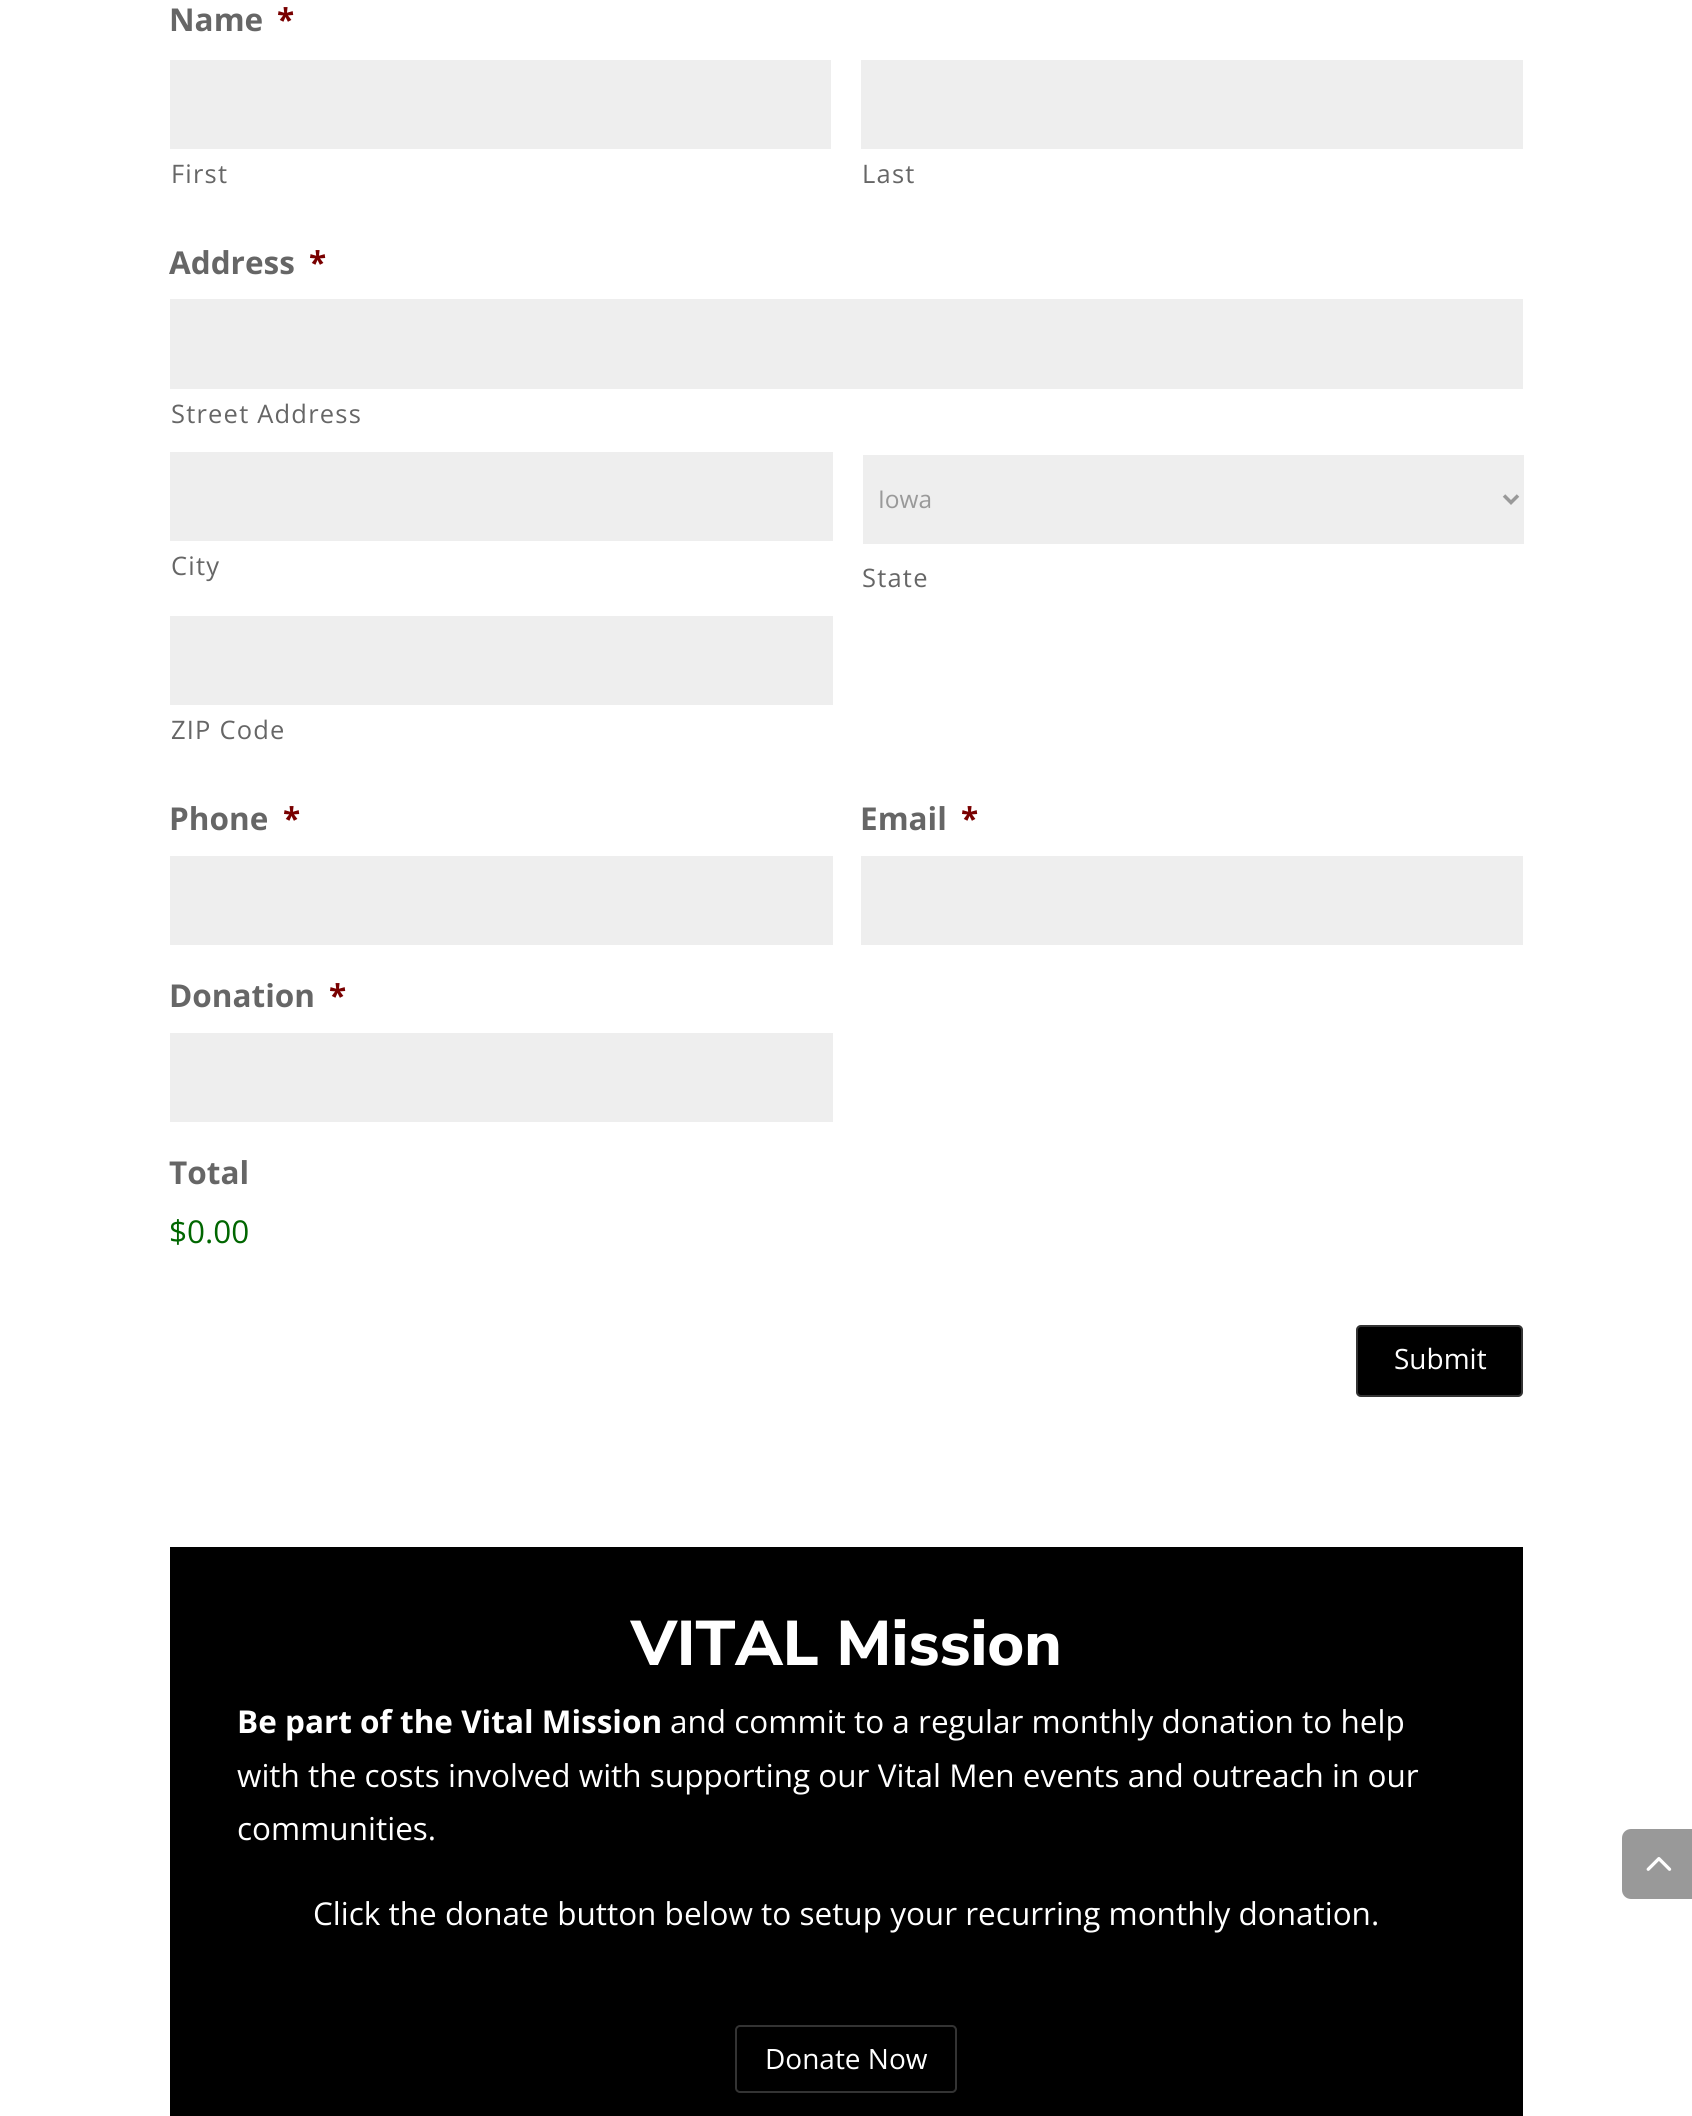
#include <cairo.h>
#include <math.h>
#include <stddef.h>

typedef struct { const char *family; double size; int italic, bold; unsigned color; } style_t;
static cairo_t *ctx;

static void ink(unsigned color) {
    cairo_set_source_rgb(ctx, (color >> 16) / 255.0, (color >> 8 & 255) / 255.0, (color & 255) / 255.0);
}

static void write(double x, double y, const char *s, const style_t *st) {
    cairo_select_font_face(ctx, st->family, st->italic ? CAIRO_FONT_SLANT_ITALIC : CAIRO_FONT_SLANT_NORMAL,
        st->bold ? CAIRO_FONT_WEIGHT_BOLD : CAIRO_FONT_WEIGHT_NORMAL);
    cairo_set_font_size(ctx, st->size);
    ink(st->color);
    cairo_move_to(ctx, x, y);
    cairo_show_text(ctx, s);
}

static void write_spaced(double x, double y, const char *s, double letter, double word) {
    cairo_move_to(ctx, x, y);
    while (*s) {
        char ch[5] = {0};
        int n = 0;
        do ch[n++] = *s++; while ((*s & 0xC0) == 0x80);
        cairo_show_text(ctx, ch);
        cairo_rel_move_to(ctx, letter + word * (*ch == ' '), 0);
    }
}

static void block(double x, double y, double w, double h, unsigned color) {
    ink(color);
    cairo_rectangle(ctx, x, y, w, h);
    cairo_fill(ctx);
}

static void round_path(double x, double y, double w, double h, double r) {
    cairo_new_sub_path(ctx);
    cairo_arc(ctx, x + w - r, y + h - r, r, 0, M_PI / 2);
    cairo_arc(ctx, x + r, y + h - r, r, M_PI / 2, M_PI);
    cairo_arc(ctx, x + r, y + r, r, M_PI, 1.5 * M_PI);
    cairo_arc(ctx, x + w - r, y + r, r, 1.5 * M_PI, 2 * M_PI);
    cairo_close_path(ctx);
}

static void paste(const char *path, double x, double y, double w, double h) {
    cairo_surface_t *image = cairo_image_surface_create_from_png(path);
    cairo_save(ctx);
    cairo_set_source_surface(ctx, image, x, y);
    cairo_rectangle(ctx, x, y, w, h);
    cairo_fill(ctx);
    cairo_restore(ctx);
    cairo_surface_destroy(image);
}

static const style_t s1 = {"Open Sans", 31.5, 0, 1, 0x666666};
static const style_t s2 = {"Open Sans", 31.5, 0, 1, 0x790000};
static const style_t s3 = {"Open Sans", 24.5, 0, 0, 0x999999};
static const style_t s4 = {"Open Sans", 31.5, 0, 0, 0x006600};
static const style_t s5 = {"Open Sans", 28, 0, 0, 0xffffff};
static const style_t s6 = {"Nunito Sans ExtraLight", 63, 0, 0, 0xffffff};
static const style_t s7 = {"Open Sans", 31.5, 0, 1, 0xffffff};
static const style_t s8 = {"Open Sans", 31.5, 0, 0, 0xffffff};

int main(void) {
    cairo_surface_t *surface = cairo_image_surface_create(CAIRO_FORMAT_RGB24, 1692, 2116);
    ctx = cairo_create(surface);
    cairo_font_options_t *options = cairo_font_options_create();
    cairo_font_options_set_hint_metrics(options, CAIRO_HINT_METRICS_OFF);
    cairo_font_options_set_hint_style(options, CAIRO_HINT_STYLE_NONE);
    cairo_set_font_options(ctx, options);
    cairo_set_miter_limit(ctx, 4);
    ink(0xffffff);
    cairo_paint(ctx);
    write(169, 31, "Name", &s1);
    write(277, 31, "*", &s2);
    block(170, 60, 661, 89, 0xeeeeee);
    cairo_select_font_face(ctx, "Open Sans", CAIRO_FONT_SLANT_NORMAL, CAIRO_FONT_WEIGHT_NORMAL);
    cairo_set_font_size(ctx, 25.5);
    ink(0x666666);
    write_spaced(171, 183, "First", 1.2, 0);
    block(861, 60, 662, 89, 0xeeeeee);
    ink(0x666666);
    write_spaced(862, 183, "Last", 1.2, 0);
    write(169, 274, "Address", &s1);
    write(309, 274, "*", &s2);
    block(170, 299, 1353, 90, 0xeeeeee);
    cairo_select_font_face(ctx, "Open Sans", CAIRO_FONT_SLANT_NORMAL, CAIRO_FONT_WEIGHT_NORMAL);
    cairo_set_font_size(ctx, 25.5);
    ink(0x666666);
    write_spaced(171, 423, "Street Address", 1.2, 0);
    block(170, 452, 663, 89, 0xeeeeee);
    ink(0x666666);
    write_spaced(171, 575, "City", 1.2, 0);
    block(863, 455, 661, 89, 0xeeeeee);
    cairo_new_path(ctx);
    cairo_move_to(ctx, 1504, 495.5);
    cairo_line_to(ctx, 1511, 502.5);
    cairo_line_to(ctx, 1518, 495.5);
    ink(0x999999);
    cairo_set_line_width(ctx, 3.5);
    cairo_stroke(ctx);
    write(878, 508, "Iowa", &s3);
    cairo_set_font_size(ctx, 25.5);
    ink(0x666666);
    write_spaced(862, 587, "State", 1.2, 0);
    block(170, 616, 663, 89, 0xeeeeee);
    ink(0x666666);
    write_spaced(171, 739, "ZIP Code", 1.2, 0);
    write(169, 830, "Phone", &s1);
    write(283, 830, "*", &s2);
    block(170, 856, 663, 89, 0xeeeeee);
    write(860, 830, "Email", &s1);
    write(961, 830, "*", &s2);
    block(861, 856, 662, 89, 0xeeeeee);
    write(169, 1007, "Donation", &s1);
    write(329, 1007, "*", &s2);
    block(170, 1033, 663, 89, 0xeeeeee);
    write(169, 1184, "Total", &s1);
    write(169, 1243, "$0.00", &s4);
    ink(0x000000);
    round_path(1356, 1325, 167, 72, 5);
    cairo_fill(ctx);
    round_path(1357, 1326, 165, 70, 4);
    cairo_set_source_rgba(ctx, 1, 1, 1, 0.2);
    cairo_set_line_width(ctx, 2);
    cairo_stroke(ctx);
    write(1394, 1369, "Submit", &s5);
    block(170, 1547, 1353, 569, 0x000000);
    write(631, 1665, "VITAL Mission", &s6);
    write(237, 1733, "Be part of the Vital Mission", &s7);
    write(670, 1733, "and commit to a regular monthly donation to help", &s8);
    write(237, 1787, "with the costs involved with supporting our Vital Men events and outreach in our", &s8);
    write(237, 1840, "communities.", &s8);
    write(313, 1925, "Click the donate button below to setup your recurring monthly donation.", &s8);
    round_path(736, 2026, 220, 66, 4);
    ink(0x333333);
    cairo_stroke(ctx);
    write(765, 2069, "Donate Now", &s5);
    ink(0x999999);
    cairo_new_path(ctx);
    cairo_move_to(ctx, 1631, 1829);
    cairo_line_to(ctx, 1692, 1829);
    cairo_line_to(ctx, 1692, 1899);
    cairo_line_to(ctx, 1631, 1899);
    cairo_curve_to(ctx, 1626, 1899, 1622, 1895, 1622, 1890);
    cairo_line_to(ctx, 1622, 1838);
    cairo_curve_to(ctx, 1622, 1833, 1626, 1829, 1631, 1829);
    cairo_close_path(ctx);
    cairo_fill(ctx);
    paste("pic1.png", 1646, 1857, 26, 14);
    cairo_surface_write_to_png(surface, "screenshot.png");
    cairo_font_options_destroy(options);
    cairo_destroy(ctx);
    cairo_surface_destroy(surface);
    return 0;
}
